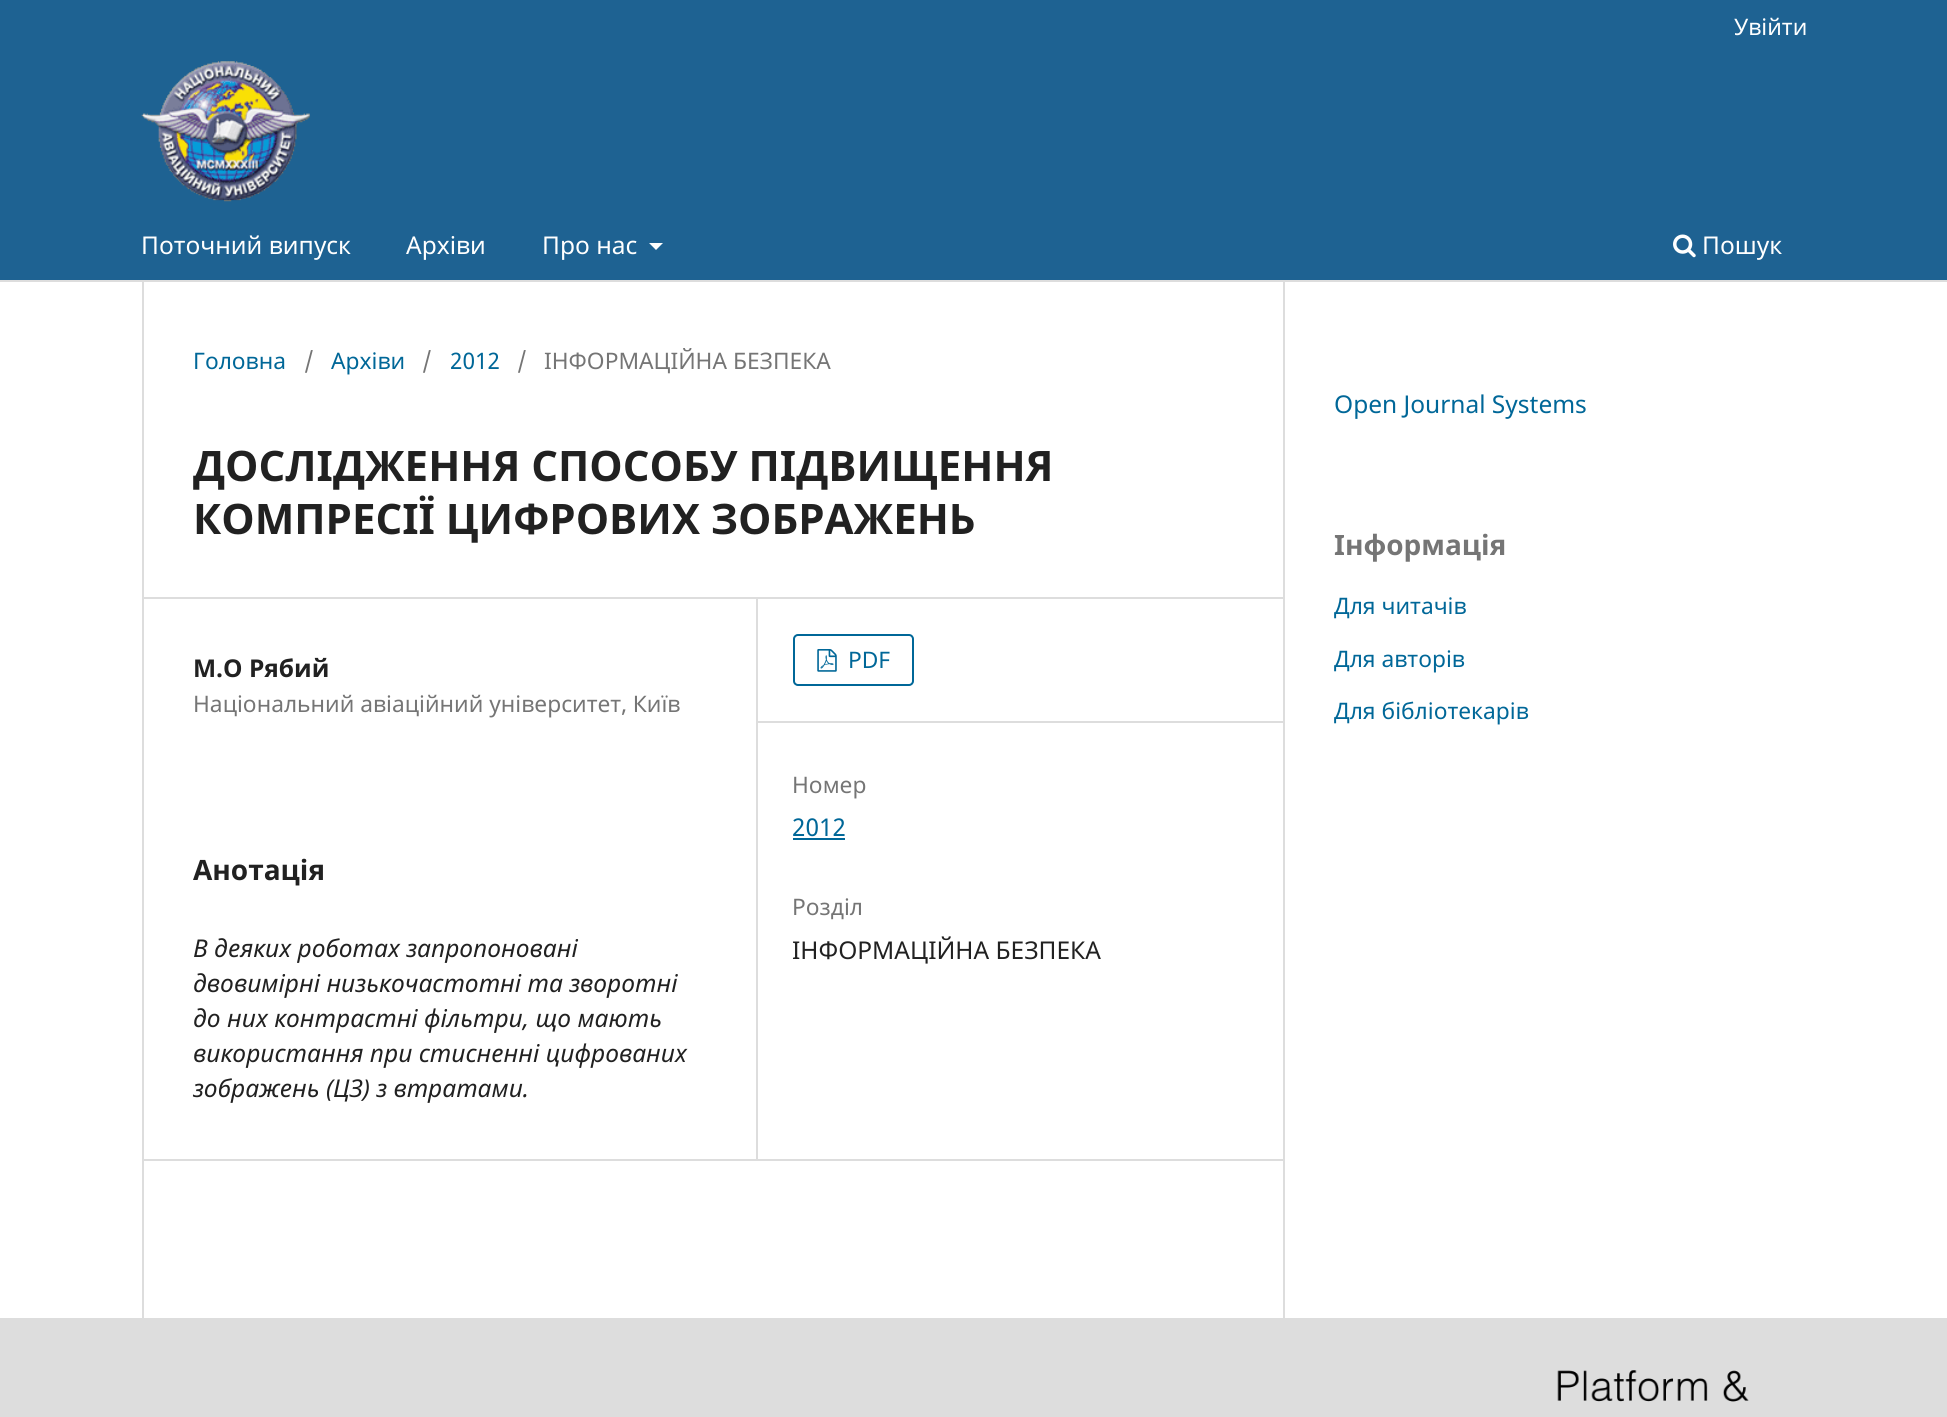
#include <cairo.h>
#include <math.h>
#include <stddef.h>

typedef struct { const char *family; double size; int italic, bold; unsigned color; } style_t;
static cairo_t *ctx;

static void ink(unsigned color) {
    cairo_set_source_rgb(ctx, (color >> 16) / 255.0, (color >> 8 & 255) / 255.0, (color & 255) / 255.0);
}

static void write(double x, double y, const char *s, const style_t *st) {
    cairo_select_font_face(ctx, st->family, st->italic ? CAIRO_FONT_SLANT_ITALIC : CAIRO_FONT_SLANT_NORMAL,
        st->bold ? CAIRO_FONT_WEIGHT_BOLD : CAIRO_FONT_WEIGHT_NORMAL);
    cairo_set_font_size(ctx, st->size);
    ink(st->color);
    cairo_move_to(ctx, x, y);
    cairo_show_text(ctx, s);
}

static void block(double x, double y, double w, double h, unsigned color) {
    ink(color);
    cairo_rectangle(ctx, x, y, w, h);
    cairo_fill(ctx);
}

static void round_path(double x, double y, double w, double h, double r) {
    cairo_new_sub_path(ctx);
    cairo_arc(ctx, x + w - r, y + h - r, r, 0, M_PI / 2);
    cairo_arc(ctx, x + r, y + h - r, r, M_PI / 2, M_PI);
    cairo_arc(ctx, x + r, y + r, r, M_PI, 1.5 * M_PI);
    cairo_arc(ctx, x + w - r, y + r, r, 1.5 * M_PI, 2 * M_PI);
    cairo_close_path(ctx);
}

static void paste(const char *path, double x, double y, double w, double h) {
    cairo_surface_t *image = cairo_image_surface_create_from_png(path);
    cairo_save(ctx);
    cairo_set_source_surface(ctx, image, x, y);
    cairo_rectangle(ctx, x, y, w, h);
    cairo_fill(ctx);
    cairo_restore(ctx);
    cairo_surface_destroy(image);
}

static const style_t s1 = {"Noto Sans", 22.75, 0, 0, 0xffffff};
static const style_t s2 = {"Noto Sans", 24.5, 0, 0, 0xffffff};
static const style_t s3 = {"Noto Sans", 22.75, 0, 0, 0x006798};
static const style_t s4 = {"Noto Sans", 22.75, 0, 0, 0x757575};
static const style_t s5 = {"Noto Sans", 42, 0, 1, 0x212121};
static const style_t s6 = {"Noto Sans", 24.5, 0, 1, 0x212121};
static const style_t s7 = {"Noto Sans", 28, 0, 1, 0x212121};
static const style_t s8 = {"Noto Sans", 24.5, 1, 0, 0x212121};
static const style_t s9 = {"Noto Sans", 24.5, 0, 0, 0x006798};
static const style_t s10 = {"Noto Sans", 24.5, 0, 0, 0x212121};
static const style_t s11 = {"Noto Sans", 28, 0, 1, 0x757575};

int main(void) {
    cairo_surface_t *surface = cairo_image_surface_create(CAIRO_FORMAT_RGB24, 1947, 1417);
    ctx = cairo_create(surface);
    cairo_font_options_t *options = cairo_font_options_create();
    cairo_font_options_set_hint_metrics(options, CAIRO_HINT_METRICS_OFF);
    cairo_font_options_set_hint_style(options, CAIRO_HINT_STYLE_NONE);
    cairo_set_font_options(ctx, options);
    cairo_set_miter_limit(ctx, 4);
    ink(0xffffff);
    cairo_paint(ctx);
    block(0, 0, 1947, 280, 0x1e6292);
    block(0, 280, 1947, 2, 0xdddddd);
    write(1734, 35, "Увійти", &s1);
    write(141, 254, "Поточний випуск", &s2);
    write(406, 254, "Архіви", &s2);
    write(542, 254, "Про нас", &s2);
    cairo_new_path(ctx);
    cairo_move_to(ctx, 649, 243);
    cairo_line_to(ctx, 663, 243);
    cairo_line_to(ctx, 656, 250);
    cairo_close_path(ctx);
    cairo_fill(ctx);
    paste("pic1.png", 1673, 234, 23, 24);
    write(1702, 254, "Пошук", &s2);
    paste("pic2.png", 141, 61, 169, 141);
    block(142, 597, 1141, 2, 0xdddddd);
    block(142, 1159, 1141, 2, 0xdddddd);
    block(142, 282, 2, 1036, 0xdddddd);
    write(193, 369, "Головна", &s3);
    write(304, 369, "/", &s4);
    write(331, 369, "Архіви", &s3);
    write(422, 369, "/", &s4);
    write(450, 369, "2012", &s3);
    write(517, 369, "/", &s4);
    write(544, 369, "ІНФОРМАЦІЙНА БЕЗПЕКА", &s4);
    write(193, 481, "ДОСЛІДЖЕННЯ СПОСОБУ ПІДВИЩЕННЯ", &s5);
    write(193, 534, "КОМПРЕСІЇ ЦИФРОВИХ ЗОБРАЖЕНЬ", &s5);
    block(756, 599, 2, 560, 0xdddddd);
    write(193, 677, "М.О Рябий", &s6);
    write(193, 712, "Національний авіаційний університет, Київ", &s4);
    write(193, 880, "Анотація", &s7);
    write(193, 957, "В деяких роботах запропоновані", &s8);
    write(193, 992, "двовимірні низькочастотні та зворотні", &s8);
    write(193, 1027, "до них контрастні фільтри, що мають", &s8);
    write(193, 1062, "використання при стисненні цифрованих", &s8);
    write(193, 1097, "зображень (ЦЗ) з втратами.", &s8);
    block(758, 721, 525, 2, 0xdddddd);
    round_path(794, 635, 119, 50, 4);
    ink(0x006798);
    cairo_stroke(ctx);
    paste("pic3.png", 817, 649, 20, 23);
    write(848, 668, "PDF", &s3);
    write(792, 793, "Номер", &s4);
    write(792, 836, "2012", &s9);
    block(793, 838, 52, 2, 0x006798);
    write(792, 915, "Розділ", &s4);
    write(792, 959, "ІНФОРМАЦІЙНА БЕЗПЕКА", &s10);
    block(1283, 282, 2, 1036, 0xdddddd);
    write(1334, 413, "Open Journal Systems", &s9);
    write(1334, 555, "Інформація", &s11);
    write(1334, 614, "Для читачів", &s3);
    write(1334, 667, "Для авторів", &s3);
    write(1334, 719, "Для бібліотекарів", &s3);
    block(0, 1318, 1947, 99, 0xdddddd);
    paste("pic4.png", 1557, 1370, 192, 32);
    cairo_surface_write_to_png(surface, "screenshot.png");
    cairo_font_options_destroy(options);
    cairo_destroy(ctx);
    cairo_surface_destroy(surface);
    return 0;
}
